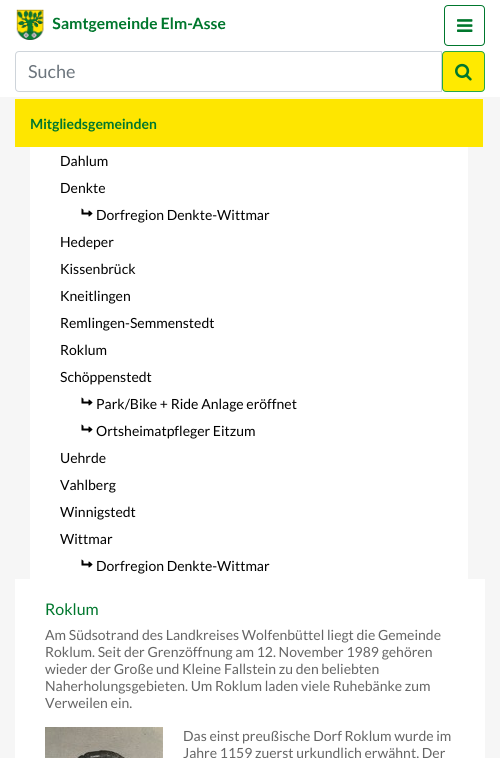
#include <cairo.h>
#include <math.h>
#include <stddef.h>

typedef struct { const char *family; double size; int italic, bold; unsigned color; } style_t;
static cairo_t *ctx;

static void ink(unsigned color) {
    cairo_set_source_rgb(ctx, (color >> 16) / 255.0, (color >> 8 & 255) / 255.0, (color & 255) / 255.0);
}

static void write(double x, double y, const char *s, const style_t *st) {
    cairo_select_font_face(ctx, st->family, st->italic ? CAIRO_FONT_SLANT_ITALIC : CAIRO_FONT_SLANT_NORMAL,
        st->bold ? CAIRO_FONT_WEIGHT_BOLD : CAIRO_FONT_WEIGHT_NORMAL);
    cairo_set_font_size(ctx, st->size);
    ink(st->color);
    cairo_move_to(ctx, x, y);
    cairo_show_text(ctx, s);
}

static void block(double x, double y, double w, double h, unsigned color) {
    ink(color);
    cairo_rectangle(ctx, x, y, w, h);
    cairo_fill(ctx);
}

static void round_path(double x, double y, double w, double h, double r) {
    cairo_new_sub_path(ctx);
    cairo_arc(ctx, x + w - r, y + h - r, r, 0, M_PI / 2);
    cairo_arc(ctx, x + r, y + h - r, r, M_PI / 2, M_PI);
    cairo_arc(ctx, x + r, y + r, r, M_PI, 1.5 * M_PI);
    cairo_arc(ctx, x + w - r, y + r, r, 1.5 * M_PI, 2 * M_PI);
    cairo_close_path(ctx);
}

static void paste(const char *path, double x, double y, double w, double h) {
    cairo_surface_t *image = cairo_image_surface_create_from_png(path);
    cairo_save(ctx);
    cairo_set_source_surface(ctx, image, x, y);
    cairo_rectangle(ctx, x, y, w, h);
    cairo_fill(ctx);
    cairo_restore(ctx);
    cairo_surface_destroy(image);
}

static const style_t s1 = {"Lato", 18, 0, 0, 0x6c757d};
static const style_t s2 = {"Lato", 14, 0, 1, 0x00772d};
static const style_t s3 = {"Lato", 14, 0, 0, 0x000000};
static const style_t s4 = {"Lato", 16, 0, 0, 0x00772d};
static const style_t s5 = {"Lato", 14, 0, 0, 0x656565};

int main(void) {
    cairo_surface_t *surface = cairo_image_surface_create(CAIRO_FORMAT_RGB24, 500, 758);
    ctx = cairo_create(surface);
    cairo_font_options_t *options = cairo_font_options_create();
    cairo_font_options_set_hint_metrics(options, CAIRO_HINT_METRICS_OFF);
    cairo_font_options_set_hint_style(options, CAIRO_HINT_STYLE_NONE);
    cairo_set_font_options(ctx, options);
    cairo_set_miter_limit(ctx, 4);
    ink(0xffffff);
    cairo_paint(ctx);
    paste("pic1.png", 16, 9, 210, 31);
    round_path(444.5, 5.5, 40, 40, 3.5);
    ink(0x00772d);
    cairo_set_line_width(ctx, 1);
    cairo_stroke(ctx);
    paste("pic2.png", 457, 19, 16, 13);
    cairo_new_path(ctx);
    cairo_move_to(ctx, 19, 51.5);
    cairo_line_to(ctx, 441.5, 51.5);
    cairo_line_to(ctx, 441.5, 91.5);
    cairo_line_to(ctx, 19, 91.5);
    cairo_curve_to(ctx, 17, 91.5, 15.5, 90, 15.5, 88);
    cairo_line_to(ctx, 15.5, 55);
    cairo_curve_to(ctx, 15.5, 53, 17, 51.5, 19, 51.5);
    cairo_close_path(ctx);
    ink(0xced4da);
    cairo_stroke(ctx);
    write(28, 78, "Suche", &s1);
    ink(0xffea00);
    round_path(442.5, 51.5, 42, 40, 3.5);
    cairo_fill_preserve(ctx);
    ink(0x28a745);
    cairo_stroke(ctx);
    paste("pic3.png", 455, 63, 17, 18);
    block(0, 97, 500, 661, 0xf6f6f6);
    block(15, 99, 468, 48, 0xfee600);
    write(30, 129, "Mitgliedsgemeinden", &s2);
    block(30, 147, 438, 432, 0xffffff);
    write(60, 166, "Dahlum", &s3);
    write(60, 193, "Denkte", &s3);
    paste("pic4.png", 81, 208, 12, 9);
    write(96, 220, "Dorfregion Denkte-Wittmar", &s3);
    write(60, 247, "Hedeper", &s3);
    write(60, 274, "Kissenbrück", &s3);
    write(60, 301, "Kneitlingen", &s3);
    write(60, 328, "Remlingen-Semmenstedt", &s3);
    write(60, 355, "Roklum", &s3);
    write(60, 382, "Schöppenstedt", &s3);
    paste("pic4.png", 81, 397, 12, 9);
    write(96, 409, "Park/Bike + Ride Anlage eröffnet", &s3);
    paste("pic4.png", 81, 424, 12, 9);
    write(96, 436, "Ortsheimatpfleger Eitzum", &s3);
    write(60, 463, "Uehrde", &s3);
    write(60, 490, "Vahlberg", &s3);
    write(60, 517, "Winnigstedt", &s3);
    write(60, 544, "Wittmar", &s3);
    paste("pic4.png", 81, 559, 12, 9);
    write(96, 571, "Dorfregion Denkte-Wittmar", &s3);
    block(15, 579, 470, 179, 0xffffff);
    write(45, 615, "Roklum", &s4);
    write(45, 640, "Am Südsotrand des Landkreises Wolfenbüttel liegt die Gemeinde", &s5);
    write(45, 657, "Roklum. Seit der Grenzöffnung am 12. November 1989 gehören", &s5);
    write(45, 674, "wieder der Große und Kleine Fallstein zu den beliebten", &s5);
    write(45, 691, "Naherholungsgebieten. Um Roklum laden viele Ruhebänke zum", &s5);
    write(45, 708, "Verweilen ein.", &s5);
    paste("pic5.png", 45, 727, 118, 31);
    write(183, 741, "Das einst preußische Dorf Roklum wurde im", &s5);
    write(183, 758, "Jahre 1159 zuerst urkundlich erwähnt. Der", &s5);
    cairo_surface_write_to_png(surface, "screenshot.png");
    cairo_font_options_destroy(options);
    cairo_destroy(ctx);
    cairo_surface_destroy(surface);
    return 0;
}
